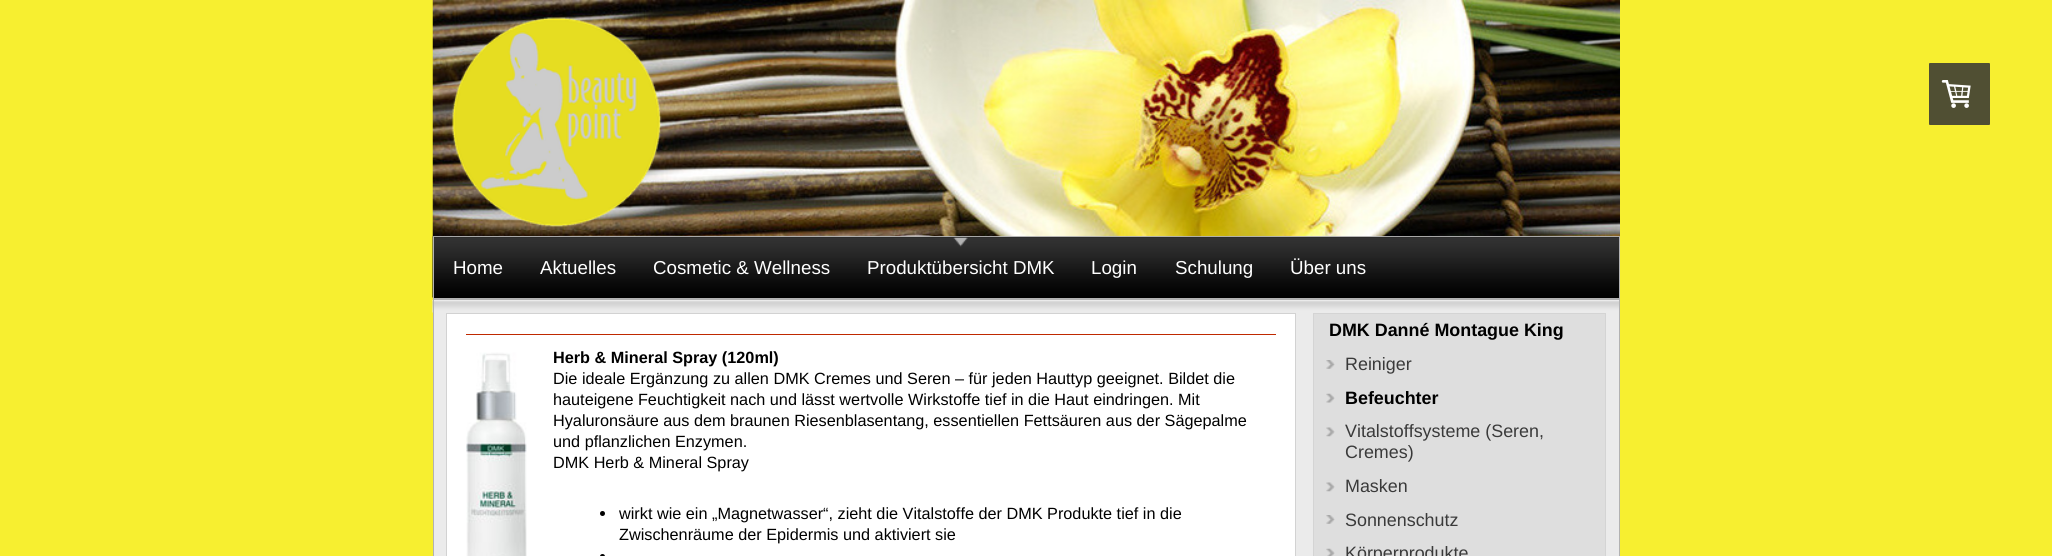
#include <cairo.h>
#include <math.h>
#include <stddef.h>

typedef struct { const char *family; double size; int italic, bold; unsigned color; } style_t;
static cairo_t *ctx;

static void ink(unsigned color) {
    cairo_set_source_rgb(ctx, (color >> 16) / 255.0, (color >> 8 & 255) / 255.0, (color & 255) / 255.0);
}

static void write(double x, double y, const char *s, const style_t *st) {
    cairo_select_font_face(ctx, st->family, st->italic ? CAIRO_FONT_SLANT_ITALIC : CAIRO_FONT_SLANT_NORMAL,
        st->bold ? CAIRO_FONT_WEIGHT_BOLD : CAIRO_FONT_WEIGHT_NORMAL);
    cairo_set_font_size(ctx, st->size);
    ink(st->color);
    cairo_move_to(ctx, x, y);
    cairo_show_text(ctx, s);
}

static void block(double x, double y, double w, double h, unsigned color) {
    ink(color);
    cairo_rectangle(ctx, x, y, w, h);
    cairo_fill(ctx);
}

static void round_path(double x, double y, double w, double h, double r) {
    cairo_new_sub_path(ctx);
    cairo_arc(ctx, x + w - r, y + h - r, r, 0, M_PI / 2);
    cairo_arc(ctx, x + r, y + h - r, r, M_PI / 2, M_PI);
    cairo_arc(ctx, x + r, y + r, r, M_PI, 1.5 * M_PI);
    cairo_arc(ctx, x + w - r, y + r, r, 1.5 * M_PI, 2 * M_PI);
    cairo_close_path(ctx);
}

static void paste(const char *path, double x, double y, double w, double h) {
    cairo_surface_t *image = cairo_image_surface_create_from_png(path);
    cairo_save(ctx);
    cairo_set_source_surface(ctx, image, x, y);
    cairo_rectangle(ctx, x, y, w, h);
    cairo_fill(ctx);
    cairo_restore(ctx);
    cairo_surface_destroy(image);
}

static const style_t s1 = {"Liberation Sans", 18.75, 0, 0, 0xffffff};
static const style_t s2 = {"Liberation Sans", 16.25, 0, 1, 0x000000};
static const style_t s3 = {"Liberation Sans", 16.25, 0, 0, 0x000000};
static const style_t s4 = {"Liberation Sans", 17.9, 0, 1, 0x000000};
static const style_t s5 = {"Liberation Sans", 17.9, 0, 0, 0x3a3a3a};

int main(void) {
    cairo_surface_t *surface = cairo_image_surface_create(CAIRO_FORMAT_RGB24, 2052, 556);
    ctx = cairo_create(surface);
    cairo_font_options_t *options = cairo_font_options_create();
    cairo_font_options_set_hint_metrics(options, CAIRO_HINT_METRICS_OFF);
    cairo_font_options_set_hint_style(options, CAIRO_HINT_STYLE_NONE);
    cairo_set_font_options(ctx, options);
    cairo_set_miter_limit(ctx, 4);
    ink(0xf7ef30);
    cairo_paint(ctx);
    block(434, 297, 1185, 1, 0x010101);
    paste("pic3.png", 432, 236, 1187, 62);
    cairo_rectangle(ctx, 433.5, 236.5, 1186, 62);
    ink(0xb2b2b2);
    cairo_set_line_width(ctx, 1);
    cairo_stroke(ctx);
    paste("pic1.png", 432, 0, 1188, 237);
    paste("pic2.png", 452, 17, 210, 210);
    write(453, 274, "Home", &s1);
    write(540, 274, "Aktuelles", &s1);
    write(653, 274, "Cosmetic & Wellness", &s1);
    paste("pic4.png", 953, 237, 15, 10);
    write(867, 274, "Produktübersicht DMK", &s1);
    write(1091, 274, "Login", &s1);
    write(1175, 274, "Schulung", &s1);
    write(1290, 274, "Über uns", &s1);
    block(434, 312, 1185, 244, 0xebebeb);
    paste("pic5.png", 432, 300, 1187, 13);
    cairo_rectangle(ctx, 433.5, 299.5, 1186, 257);
    ink(0xb2b2b2);
    cairo_stroke(ctx);
    ink(0xffffff);
    cairo_rectangle(ctx, 446.5, 313.5, 849, 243);
    cairo_fill_preserve(ctx);
    ink(0xd2d2d2);
    cairo_stroke(ctx);
    block(466, 334, 810, 1, 0xbf2900);
    paste("pic6.png", 466, 352, 61, 204);
    write(553, 363, "Herb & Mineral Spray (120ml)", &s2);
    write(553, 384, "Die ideale Ergänzung zu allen DMK Cremes und Seren – für jeden Hauttyp geeignet. Bildet die", &s3);
    write(553, 405, "hauteigene Feuchtigkeit nach und lässt wertvolle Wirkstoffe tief in die Haut eindringen. Mit", &s3);
    write(553, 426, "Hyaluronsäure aus dem braunen Riesenblasentang, essentiellen Fettsäuren aus der Sägepalme", &s3);
    write(553, 447, "und pflanzlichen Enzymen.", &s3);
    write(553, 468, "DMK Herb & Mineral Spray", &s3);
    cairo_new_path(ctx);
    cairo_arc(ctx, 602.5, 513.5, 2.5, 0, 2 * M_PI);
    cairo_fill(ctx);
    write(619, 519, "wirkt wie ein „Magnetwasser“, zieht die Vitalstoffe der DMK Produkte tief in die", &s3);
    write(619, 540, "Zwischenräume der Epidermis und aktiviert sie", &s3);
    cairo_new_path(ctx);
    cairo_arc(ctx, 602.5, 556.5, 2.5, 0, 2 * M_PI);
    cairo_fill(ctx);
    ink(0x504f33);
    round_path(1929, 63, 61, 62, 1);
    cairo_fill(ctx);
    paste("pic7.png", 1941, 80, 30, 28);
    ink(0xdedede);
    cairo_rectangle(ctx, 1313.5, 313.5, 292, 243);
    cairo_fill_preserve(ctx);
    ink(0xd4d4d4);
    cairo_stroke(ctx);
    write(1329, 336, "DMK Danné Montague King", &s4);
    paste("pic8.png", 1326, 360, 9, 9);
    write(1345, 370, "Reiniger", &s5);
    paste("pic9.png", 1326, 393, 9, 10);
    write(1345, 404, "Befeuchter", &s4);
    paste("pic10.png", 1326, 427, 9, 10);
    write(1345, 437, "Vitalstoffsysteme (Seren,", &s5);
    write(1345, 458, "Cremes)", &s5);
    paste("pic10.png", 1326, 482, 9, 10);
    write(1345, 492, "Masken", &s5);
    paste("pic8.png", 1326, 515, 9, 9);
    write(1345, 526, "Sonnenschutz", &s5);
    paste("pic11.png", 1326, 548, 9, 8);
    write(1345, 559, "Körperprodukte", &s5);
    cairo_surface_write_to_png(surface, "screenshot.png");
    cairo_font_options_destroy(options);
    cairo_destroy(ctx);
    cairo_surface_destroy(surface);
    return 0;
}
